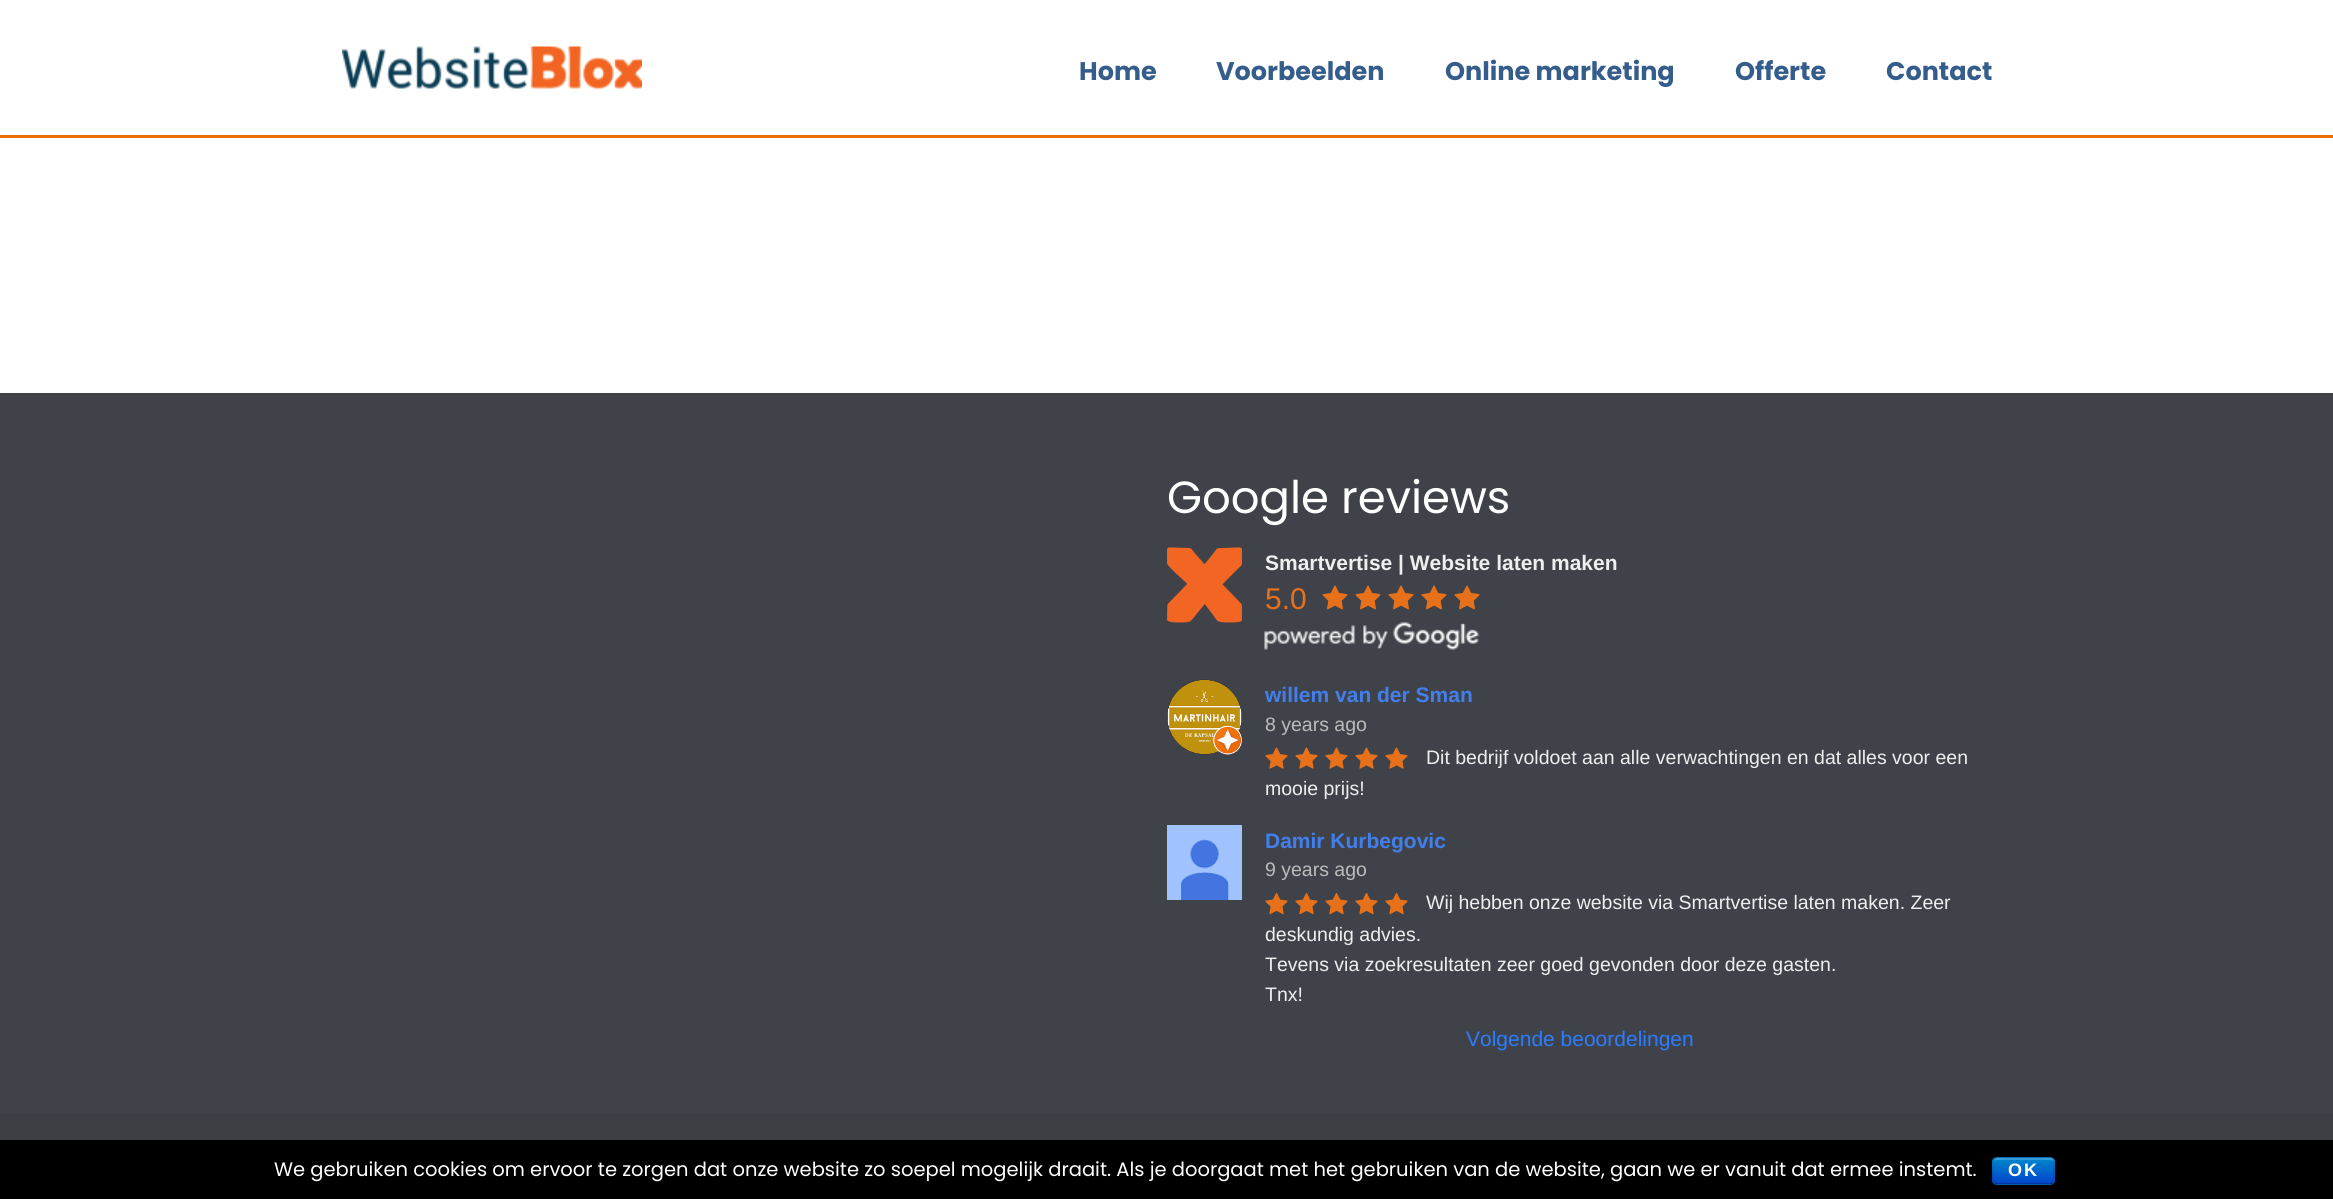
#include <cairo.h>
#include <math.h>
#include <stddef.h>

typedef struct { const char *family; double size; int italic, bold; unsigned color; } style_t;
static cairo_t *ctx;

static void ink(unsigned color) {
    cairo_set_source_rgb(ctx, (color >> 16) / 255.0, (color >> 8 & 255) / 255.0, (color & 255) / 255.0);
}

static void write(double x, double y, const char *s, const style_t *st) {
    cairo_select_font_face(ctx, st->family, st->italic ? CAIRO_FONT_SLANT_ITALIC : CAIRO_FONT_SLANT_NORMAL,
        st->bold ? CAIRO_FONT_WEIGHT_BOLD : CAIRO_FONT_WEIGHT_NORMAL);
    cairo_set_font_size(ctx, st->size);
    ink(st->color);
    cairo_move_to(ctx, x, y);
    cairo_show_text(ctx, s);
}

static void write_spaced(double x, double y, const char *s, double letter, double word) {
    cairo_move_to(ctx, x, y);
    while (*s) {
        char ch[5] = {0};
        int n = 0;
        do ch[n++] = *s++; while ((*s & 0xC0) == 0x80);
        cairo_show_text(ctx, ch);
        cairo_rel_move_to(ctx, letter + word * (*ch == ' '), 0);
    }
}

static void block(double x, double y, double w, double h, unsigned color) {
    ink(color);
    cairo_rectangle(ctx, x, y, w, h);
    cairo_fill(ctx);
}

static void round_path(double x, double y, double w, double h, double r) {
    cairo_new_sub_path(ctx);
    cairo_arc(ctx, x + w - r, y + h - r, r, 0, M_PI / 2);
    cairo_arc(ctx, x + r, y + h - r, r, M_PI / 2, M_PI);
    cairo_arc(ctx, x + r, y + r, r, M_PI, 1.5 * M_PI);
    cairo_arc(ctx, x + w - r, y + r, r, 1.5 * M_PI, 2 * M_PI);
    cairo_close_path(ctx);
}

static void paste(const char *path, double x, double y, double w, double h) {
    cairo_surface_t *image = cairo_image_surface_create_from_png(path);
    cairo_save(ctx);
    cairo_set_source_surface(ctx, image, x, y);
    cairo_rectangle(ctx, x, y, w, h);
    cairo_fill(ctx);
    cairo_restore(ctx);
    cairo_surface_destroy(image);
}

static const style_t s1 = {"Poppins", 25.5, 0, 1, 0x355d8c};
static const style_t s2 = {"Poppins", 45, 0, 0, 0xffffff};
static const style_t s3 = {"Liberation Sans", 21, 0, 1, 0xeeeeee};
static const style_t s4 = {"Liberation Sans", 30, 0, 0, 0xe7711b};
static const style_t s5 = {"Liberation Sans", 21, 0, 1, 0x427fed};
static const style_t s6 = {"Liberation Sans", 19.5, 0, 0, 0xbbbbbb};
static const style_t s7 = {"Liberation Sans", 19.5, 0, 0, 0xeeeeee};
static const style_t s8 = {"Liberation Sans", 21, 0, 0, 0x2c7cff};
static const style_t s9 = {"Poppins", 19.5, 0, 0, 0xffffff};

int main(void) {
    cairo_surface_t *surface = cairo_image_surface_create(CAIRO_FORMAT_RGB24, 2333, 1199);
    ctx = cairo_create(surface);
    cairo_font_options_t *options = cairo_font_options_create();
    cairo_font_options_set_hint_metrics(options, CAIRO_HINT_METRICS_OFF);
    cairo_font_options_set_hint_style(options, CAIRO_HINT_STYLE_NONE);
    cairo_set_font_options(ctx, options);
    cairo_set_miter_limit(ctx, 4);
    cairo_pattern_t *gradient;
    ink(0xffffff);
    cairo_paint(ctx);
    block(0, 135, 2333, 3, 0xed6e00);
    paste("pic1.png", 342, 46, 300, 43);
    write(1079, 80, "Home", &s1);
    write(1216, 80, "Voorbeelden", &s1);
    write(1445, 80, "Online marketing", &s1);
    write(1735, 80, "Offerte", &s1);
    write(1886, 80, "Contact", &s1);
    block(0, 393, 2333, 720, 0x3f4349);
    write(1167, 513, "Google reviews", &s2);
    paste("pic2.png", 1167, 547, 75, 76);
    write(1265, 570, "Smartvertise | Website laten maken", &s3);
    write(1265, 609, "5.0", &s4);
    paste("pic3.png", 1322, 585, 26, 25);
    paste("pic3.png", 1355, 585, 26, 25);
    paste("pic3.png", 1388, 585, 26, 25);
    paste("pic3.png", 1421, 585, 26, 25);
    paste("pic3.png", 1454, 585, 26, 25);
    paste("pic4.png", 1264, 622, 216, 28);
    paste("pic5.png", 1167, 679, 75, 76);
    write(1265, 702, "willem van der Sman", &s5);
    write(1265, 731, "8 years ago", &s6);
    paste("pic6.png", 1265, 747, 23, 22);
    paste("pic6.png", 1295, 747, 23, 22);
    paste("pic6.png", 1325, 747, 23, 22);
    paste("pic6.png", 1355, 747, 23, 22);
    paste("pic6.png", 1385, 747, 23, 22);
    write(1426, 764, "Dit bedrijf voldoet aan alle verwachtingen en dat alles voor een", &s7);
    write(1265, 795, "mooie prijs!", &s7);
    paste("pic7.png", 1167, 825, 75, 75);
    write(1265, 848, "Damir Kurbegovic", &s5);
    write(1265, 876, "9 years ago", &s6);
    paste("pic8.png", 1265, 893, 23, 22);
    paste("pic8.png", 1295, 893, 23, 22);
    paste("pic8.png", 1325, 893, 23, 22);
    paste("pic8.png", 1355, 893, 23, 22);
    paste("pic8.png", 1385, 893, 23, 22);
    write(1426, 909, "Wij hebben onze website via Smartvertise laten maken. Zeer", &s7);
    write(1265, 941, "deskundig advies.", &s7);
    write(1265, 971, "Tevens via zoekresultaten zeer goed gevonden door deze gasten.", &s7);
    write(1265, 1001, "Tnx!", &s7);
    write(1466, 1046, "Volgende beoordelingen", &s8);
    block(0, 1113, 2333, 27, 0x3d3f44);
    block(0, 1140, 2333, 59, 0x000000);
    write(274, 1176, "We gebruiken cookies om ervoor te zorgen dat onze website zo soepel mogelijk draait. Als je doorgaat met het gebruiken van de website, gaan we er vanuit dat ermee instemt.", &s9);
    ink(0x006dcc);
    round_path(1992, 1157, 63, 28, 5);
    cairo_fill(ctx);
    cairo_save(ctx);
    round_path(1992, 1157, 63, 28, 5);
    cairo_clip(ctx);
    gradient = cairo_pattern_create_linear(2024, 1158, 2024, 1184);
    cairo_pattern_add_color_stop_rgba(gradient, 0, 0, 0.533, 0.8, 1);
    cairo_pattern_add_color_stop_rgba(gradient, 1, 0, 0.267, 0.8, 1);
    cairo_set_source(ctx, gradient);
    cairo_pattern_destroy(gradient);
    cairo_rectangle(ctx, 1992, 1158, 63, 26);
    cairo_fill(ctx);
    cairo_restore(ctx);
    cairo_set_source_rgba(ctx, 1, 1, 1, 0.2);
    cairo_new_path(ctx);
    cairo_move_to(ctx, 1996, 1160);
    cairo_line_to(ctx, 2050, 1160);
    cairo_curve_to(ctx, 2052, 1160, 2054, 1161, 2054, 1162);
    cairo_curve_to(ctx, 2054, 1156, 2046, 1158, 2042, 1158);
    cairo_line_to(ctx, 2006, 1158);
    cairo_curve_to(ctx, 2002, 1158, 1994, 1156, 1994, 1162);
    cairo_curve_to(ctx, 1994, 1161, 1995, 1160, 1996, 1160);
    cairo_close_path(ctx);
    cairo_fill(ctx);
    cairo_new_path(ctx);
    cairo_move_to(ctx, 2053, 1183);
    cairo_line_to(ctx, 2051, 1184);
    cairo_line_to(ctx, 1996, 1184);
    cairo_line_to(ctx, 1994, 1183);
    cairo_set_source_rgba(ctx, 0, 0, 0, 0.25);
    cairo_set_line_width(ctx, 1.5);
    cairo_stroke(ctx);
    cairo_new_path(ctx);
    cairo_move_to(ctx, 1994, 1183);
    cairo_curve_to(ctx, 1991.5, 1181, 1993, 1173.5, 1993, 1171);
    cairo_curve_to(ctx, 1993, 1156.5, 1991, 1157, 2005.5, 1157);
    cairo_line_to(ctx, 2041.5, 1157);
    cairo_curve_to(ctx, 2056, 1157, 2054, 1156.5, 2054, 1171);
    cairo_curve_to(ctx, 2054, 1173.5, 2055.5, 1181, 2053, 1183);
    cairo_set_source_rgba(ctx, 0, 0, 0, 0.1);
    cairo_stroke(ctx);
    cairo_select_font_face(ctx, "Liberation Sans", CAIRO_FONT_SLANT_NORMAL, CAIRO_FONT_WEIGHT_BOLD);
    cairo_set_font_size(ctx, 18);
    ink(0xffffff);
    write_spaced(2008, 1176, "OK", 2, 0);
    cairo_surface_write_to_png(surface, "screenshot.png");
    cairo_font_options_destroy(options);
    cairo_destroy(ctx);
    cairo_surface_destroy(surface);
    return 0;
}
